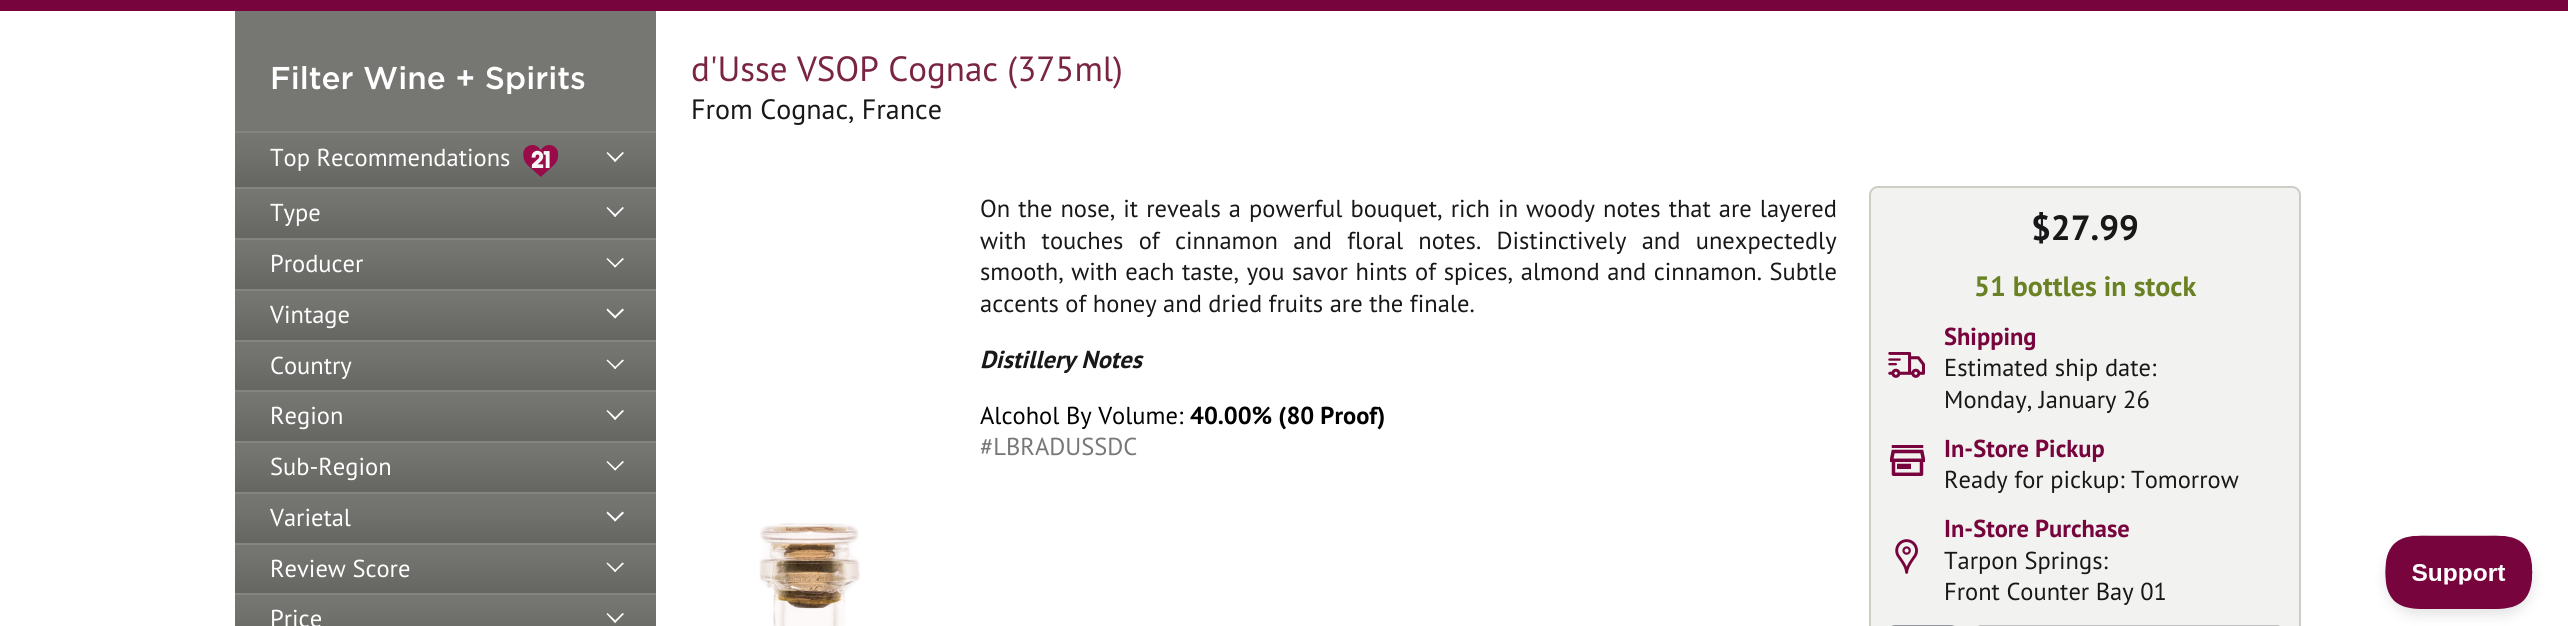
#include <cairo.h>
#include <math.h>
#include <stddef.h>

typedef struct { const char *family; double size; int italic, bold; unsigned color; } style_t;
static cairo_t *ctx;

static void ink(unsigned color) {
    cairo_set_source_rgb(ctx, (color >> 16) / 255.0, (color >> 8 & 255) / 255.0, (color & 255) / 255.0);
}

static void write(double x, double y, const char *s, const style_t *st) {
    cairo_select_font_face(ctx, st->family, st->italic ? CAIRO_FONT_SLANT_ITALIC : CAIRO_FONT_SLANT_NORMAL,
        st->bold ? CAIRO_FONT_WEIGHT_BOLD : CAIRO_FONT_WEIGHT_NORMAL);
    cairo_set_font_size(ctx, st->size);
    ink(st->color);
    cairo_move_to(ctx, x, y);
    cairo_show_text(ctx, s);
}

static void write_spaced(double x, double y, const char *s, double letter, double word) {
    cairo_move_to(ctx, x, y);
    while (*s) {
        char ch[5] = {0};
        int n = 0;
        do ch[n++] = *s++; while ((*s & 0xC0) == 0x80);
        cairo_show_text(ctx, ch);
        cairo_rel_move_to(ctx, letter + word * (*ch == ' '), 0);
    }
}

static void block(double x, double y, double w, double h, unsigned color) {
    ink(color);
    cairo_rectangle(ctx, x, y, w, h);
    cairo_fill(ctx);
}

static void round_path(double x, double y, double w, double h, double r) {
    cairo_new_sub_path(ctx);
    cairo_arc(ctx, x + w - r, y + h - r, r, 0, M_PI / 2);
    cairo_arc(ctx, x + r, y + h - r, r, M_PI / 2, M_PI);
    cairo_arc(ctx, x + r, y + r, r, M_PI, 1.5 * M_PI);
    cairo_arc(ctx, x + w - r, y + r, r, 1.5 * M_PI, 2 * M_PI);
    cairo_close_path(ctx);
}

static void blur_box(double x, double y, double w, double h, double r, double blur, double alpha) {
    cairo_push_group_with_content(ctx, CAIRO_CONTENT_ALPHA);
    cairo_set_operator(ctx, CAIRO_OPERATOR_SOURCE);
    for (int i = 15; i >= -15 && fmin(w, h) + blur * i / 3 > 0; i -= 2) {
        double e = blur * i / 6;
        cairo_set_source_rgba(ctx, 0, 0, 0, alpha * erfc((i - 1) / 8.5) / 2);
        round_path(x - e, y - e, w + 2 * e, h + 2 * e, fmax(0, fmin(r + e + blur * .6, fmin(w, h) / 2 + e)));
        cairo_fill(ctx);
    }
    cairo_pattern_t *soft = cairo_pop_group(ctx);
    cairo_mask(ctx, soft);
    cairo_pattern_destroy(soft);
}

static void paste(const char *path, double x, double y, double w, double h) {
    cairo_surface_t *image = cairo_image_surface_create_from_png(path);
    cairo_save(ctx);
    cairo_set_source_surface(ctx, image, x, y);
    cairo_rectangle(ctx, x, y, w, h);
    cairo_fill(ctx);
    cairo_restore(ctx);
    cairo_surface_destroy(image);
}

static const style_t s1 = {"Gotham Medium", 31.5, 0, 0, 0xffffff};
static const style_t s2 = {"PT Sans", 24.5, 0, 0, 0xffffff};
static const style_t s3 = {"PT Sans", 35, 0, 0, 0x7a2444};
static const style_t s4 = {"PT Sans", 28, 0, 0, 0x181818};
static const style_t s5 = {"PT Sans", 24.5, 0, 0, 0x181818};
static const style_t s6 = {"PT Sans", 24.5, 1, 1, 0x181818};
static const style_t s7 = {"PT Sans", 24.5, 0, 0, 0x000000};
static const style_t s8 = {"PT Sans", 24.5, 0, 1, 0x000000};
static const style_t s9 = {"PT Sans", 24.5, 0, 0, 0x777777};
static const style_t s10 = {"PT Sans", 35, 0, 1, 0x181818};
static const style_t s11 = {"PT Sans", 28, 0, 1, 0x6a8224};
static const style_t s12 = {"PT Sans", 24.5, 0, 1, 0x77043c};

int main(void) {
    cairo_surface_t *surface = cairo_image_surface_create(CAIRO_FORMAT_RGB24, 2568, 626);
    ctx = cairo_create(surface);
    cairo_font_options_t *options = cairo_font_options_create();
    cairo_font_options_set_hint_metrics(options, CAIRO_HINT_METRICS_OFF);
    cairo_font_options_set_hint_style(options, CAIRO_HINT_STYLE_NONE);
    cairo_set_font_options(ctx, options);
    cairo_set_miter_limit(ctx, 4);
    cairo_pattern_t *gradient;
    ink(0xffffff);
    cairo_paint(ctx);
    block(0, 0, 2568, 11, 0x77043c);
    block(235, 11, 421, 120, 0x767672);
    write(270, 89, "Filter Wine + Spirits", &s1);
    gradient = cairo_pattern_create_linear(445, 133, 445, 187);
    cairo_pattern_add_color_stop_rgba(gradient, 0, 0.463, 0.463, 0.447, 1);
    cairo_pattern_add_color_stop_rgba(gradient, 0.33, 0.447, 0.447, 0.431, 1);
    cairo_pattern_add_color_stop_rgba(gradient, 1, 0.396, 0.396, 0.384, 1);
    cairo_set_source(ctx, gradient);
    cairo_pattern_destroy(gradient);
    cairo_rectangle(ctx, 235, 133, 421, 54);
    cairo_fill(ctx);
    block(235, 131, 421, 2, 0x848480);
    write(270, 166, "Top Recommendations", &s2);
    paste("pic1.png", 523, 145, 35, 32);
    cairo_new_path(ctx);
    cairo_move_to(ctx, 622.5, 152);
    cairo_line_to(ctx, 624, 153);
    cairo_line_to(ctx, 615, 162);
    cairo_line_to(ctx, 614, 160.5);
    cairo_close_path(ctx);
    cairo_fill(ctx);
    cairo_new_path(ctx);
    cairo_move_to(ctx, 607.5, 152);
    cairo_line_to(ctx, 616.5, 160.5);
    cairo_line_to(ctx, 615, 162);
    cairo_line_to(ctx, 606.5, 153);
    cairo_close_path(ctx);
    cairo_fill(ctx);
    gradient = cairo_pattern_create_linear(445, 189, 445, 238);
    cairo_pattern_add_color_stop_rgba(gradient, 0, 0.463, 0.463, 0.447, 1);
    cairo_pattern_add_color_stop_rgba(gradient, 0.33, 0.447, 0.447, 0.431, 1);
    cairo_pattern_add_color_stop_rgba(gradient, 1, 0.396, 0.396, 0.384, 1);
    cairo_set_source(ctx, gradient);
    cairo_pattern_destroy(gradient);
    cairo_rectangle(ctx, 235, 189, 421, 49);
    cairo_fill(ctx);
    block(235, 187, 421, 2, 0x848480);
    write(270, 221, "Type", &s2);
    cairo_new_path(ctx);
    cairo_move_to(ctx, 622.5, 207);
    cairo_line_to(ctx, 624, 208);
    cairo_line_to(ctx, 615, 217);
    cairo_line_to(ctx, 614, 215.5);
    cairo_close_path(ctx);
    cairo_fill(ctx);
    cairo_new_path(ctx);
    cairo_move_to(ctx, 607.5, 207);
    cairo_line_to(ctx, 616.5, 215.5);
    cairo_line_to(ctx, 615, 217);
    cairo_line_to(ctx, 606.5, 208);
    cairo_close_path(ctx);
    cairo_fill(ctx);
    gradient = cairo_pattern_create_linear(445, 240, 445, 289);
    cairo_pattern_add_color_stop_rgba(gradient, 0, 0.463, 0.463, 0.447, 1);
    cairo_pattern_add_color_stop_rgba(gradient, 0.33, 0.447, 0.447, 0.431, 1);
    cairo_pattern_add_color_stop_rgba(gradient, 1, 0.396, 0.396, 0.384, 1);
    cairo_set_source(ctx, gradient);
    cairo_pattern_destroy(gradient);
    cairo_rectangle(ctx, 235, 240, 421, 49);
    cairo_fill(ctx);
    block(235, 238, 421, 2, 0x848480);
    write(270, 272, "Producer", &s2);
    cairo_new_path(ctx);
    cairo_move_to(ctx, 622.5, 258);
    cairo_line_to(ctx, 624, 259);
    cairo_line_to(ctx, 615, 267.5);
    cairo_line_to(ctx, 614, 266.5);
    cairo_close_path(ctx);
    cairo_fill(ctx);
    cairo_new_path(ctx);
    cairo_move_to(ctx, 607.5, 258);
    cairo_line_to(ctx, 616.5, 266.5);
    cairo_line_to(ctx, 615, 267.5);
    cairo_line_to(ctx, 606.5, 259);
    cairo_close_path(ctx);
    cairo_fill(ctx);
    gradient = cairo_pattern_create_linear(445, 291, 445, 340);
    cairo_pattern_add_color_stop_rgba(gradient, 0, 0.463, 0.463, 0.447, 1);
    cairo_pattern_add_color_stop_rgba(gradient, 0.33, 0.447, 0.447, 0.431, 1);
    cairo_pattern_add_color_stop_rgba(gradient, 1, 0.396, 0.396, 0.384, 1);
    cairo_set_source(ctx, gradient);
    cairo_pattern_destroy(gradient);
    cairo_rectangle(ctx, 235, 291, 421, 49);
    cairo_fill(ctx);
    block(235, 289, 421, 2, 0x848480);
    write(270, 323, "Vintage", &s2);
    cairo_new_path(ctx);
    cairo_move_to(ctx, 622.5, 308.5);
    cairo_line_to(ctx, 624, 310);
    cairo_line_to(ctx, 615, 318.5);
    cairo_line_to(ctx, 614, 317);
    cairo_close_path(ctx);
    cairo_fill(ctx);
    cairo_new_path(ctx);
    cairo_move_to(ctx, 607.5, 308.5);
    cairo_line_to(ctx, 616.5, 317);
    cairo_line_to(ctx, 615, 318.5);
    cairo_line_to(ctx, 606.5, 310);
    cairo_close_path(ctx);
    cairo_fill(ctx);
    gradient = cairo_pattern_create_linear(445, 341, 445, 390);
    cairo_pattern_add_color_stop_rgba(gradient, 0, 0.463, 0.463, 0.447, 1);
    cairo_pattern_add_color_stop_rgba(gradient, 0.33, 0.447, 0.447, 0.431, 1);
    cairo_pattern_add_color_stop_rgba(gradient, 1, 0.396, 0.396, 0.384, 1);
    cairo_set_source(ctx, gradient);
    cairo_pattern_destroy(gradient);
    cairo_rectangle(ctx, 235, 342, 421, 48);
    cairo_fill(ctx);
    block(235, 340, 421, 2, 0x848480);
    write(270, 374, "Country", &s2);
    cairo_new_path(ctx);
    cairo_move_to(ctx, 622.5, 359.5);
    cairo_line_to(ctx, 624, 360.5);
    cairo_line_to(ctx, 615, 369);
    cairo_line_to(ctx, 614, 368);
    cairo_close_path(ctx);
    cairo_fill(ctx);
    cairo_new_path(ctx);
    cairo_move_to(ctx, 607.5, 359.5);
    cairo_line_to(ctx, 616.5, 368);
    cairo_line_to(ctx, 615, 369);
    cairo_line_to(ctx, 606.5, 360.5);
    cairo_close_path(ctx);
    cairo_fill(ctx);
    gradient = cairo_pattern_create_linear(445, 392, 445, 441);
    cairo_pattern_add_color_stop_rgba(gradient, 0, 0.463, 0.463, 0.447, 1);
    cairo_pattern_add_color_stop_rgba(gradient, 0.33, 0.447, 0.447, 0.431, 1);
    cairo_pattern_add_color_stop_rgba(gradient, 1, 0.396, 0.396, 0.384, 1);
    cairo_set_source(ctx, gradient);
    cairo_pattern_destroy(gradient);
    cairo_rectangle(ctx, 235, 392, 421, 49);
    cairo_fill(ctx);
    block(235, 390, 421, 2, 0x848480);
    write(270, 424, "Region", &s2);
    cairo_new_path(ctx);
    cairo_move_to(ctx, 622.5, 410);
    cairo_line_to(ctx, 624, 411);
    cairo_line_to(ctx, 615, 420);
    cairo_line_to(ctx, 614, 418.5);
    cairo_close_path(ctx);
    cairo_fill(ctx);
    cairo_new_path(ctx);
    cairo_move_to(ctx, 607.5, 410);
    cairo_line_to(ctx, 616.5, 418.5);
    cairo_line_to(ctx, 615, 420);
    cairo_line_to(ctx, 606.5, 411);
    cairo_close_path(ctx);
    cairo_fill(ctx);
    gradient = cairo_pattern_create_linear(445, 443, 445, 492);
    cairo_pattern_add_color_stop_rgba(gradient, 0, 0.463, 0.463, 0.447, 1);
    cairo_pattern_add_color_stop_rgba(gradient, 0.33, 0.447, 0.447, 0.431, 1);
    cairo_pattern_add_color_stop_rgba(gradient, 1, 0.396, 0.396, 0.384, 1);
    cairo_set_source(ctx, gradient);
    cairo_pattern_destroy(gradient);
    cairo_rectangle(ctx, 235, 443, 421, 49);
    cairo_fill(ctx);
    block(235, 441, 421, 2, 0x848480);
    write(270, 475, "Sub-Region", &s2);
    cairo_new_path(ctx);
    cairo_move_to(ctx, 622.5, 461);
    cairo_line_to(ctx, 624, 462);
    cairo_line_to(ctx, 615, 470.5);
    cairo_line_to(ctx, 614, 469.5);
    cairo_close_path(ctx);
    cairo_fill(ctx);
    cairo_new_path(ctx);
    cairo_move_to(ctx, 607.5, 461);
    cairo_line_to(ctx, 616.5, 469.5);
    cairo_line_to(ctx, 615, 470.5);
    cairo_line_to(ctx, 606.5, 462);
    cairo_close_path(ctx);
    cairo_fill(ctx);
    gradient = cairo_pattern_create_linear(445, 494, 445, 543);
    cairo_pattern_add_color_stop_rgba(gradient, 0, 0.463, 0.463, 0.447, 1);
    cairo_pattern_add_color_stop_rgba(gradient, 0.33, 0.447, 0.447, 0.431, 1);
    cairo_pattern_add_color_stop_rgba(gradient, 1, 0.396, 0.396, 0.384, 1);
    cairo_set_source(ctx, gradient);
    cairo_pattern_destroy(gradient);
    cairo_rectangle(ctx, 235, 494, 421, 49);
    cairo_fill(ctx);
    block(235, 492, 421, 2, 0x848480);
    write(270, 526, "Varietal", &s2);
    cairo_new_path(ctx);
    cairo_move_to(ctx, 622.5, 511.5);
    cairo_line_to(ctx, 624, 513);
    cairo_line_to(ctx, 615, 521.5);
    cairo_line_to(ctx, 614, 520);
    cairo_close_path(ctx);
    cairo_fill(ctx);
    cairo_new_path(ctx);
    cairo_move_to(ctx, 607.5, 511.5);
    cairo_line_to(ctx, 616.5, 520);
    cairo_line_to(ctx, 615, 521.5);
    cairo_line_to(ctx, 606.5, 513);
    cairo_close_path(ctx);
    cairo_fill(ctx);
    gradient = cairo_pattern_create_linear(445, 544, 445, 593);
    cairo_pattern_add_color_stop_rgba(gradient, 0, 0.463, 0.463, 0.447, 1);
    cairo_pattern_add_color_stop_rgba(gradient, 0.33, 0.447, 0.447, 0.431, 1);
    cairo_pattern_add_color_stop_rgba(gradient, 1, 0.396, 0.396, 0.384, 1);
    cairo_set_source(ctx, gradient);
    cairo_pattern_destroy(gradient);
    cairo_rectangle(ctx, 235, 545, 421, 48);
    cairo_fill(ctx);
    block(235, 543, 421, 2, 0x848480);
    write(270, 577, "Review Score", &s2);
    cairo_new_path(ctx);
    cairo_move_to(ctx, 622.5, 562.5);
    cairo_line_to(ctx, 624, 563.5);
    cairo_line_to(ctx, 615, 572);
    cairo_line_to(ctx, 614, 571);
    cairo_close_path(ctx);
    cairo_fill(ctx);
    cairo_new_path(ctx);
    cairo_move_to(ctx, 607.5, 562.5);
    cairo_line_to(ctx, 616.5, 571);
    cairo_line_to(ctx, 615, 572);
    cairo_line_to(ctx, 606.5, 563.5);
    cairo_close_path(ctx);
    cairo_fill(ctx);
    gradient = cairo_pattern_create_linear(445, 595, 445, 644);
    cairo_pattern_add_color_stop_rgba(gradient, 0, 0.463, 0.463, 0.447, 1);
    cairo_pattern_add_color_stop_rgba(gradient, 0.33, 0.447, 0.447, 0.431, 1);
    cairo_pattern_add_color_stop_rgba(gradient, 1, 0.396, 0.396, 0.384, 1);
    cairo_set_source(ctx, gradient);
    cairo_pattern_destroy(gradient);
    cairo_rectangle(ctx, 235, 595, 421, 31);
    cairo_fill(ctx);
    block(235, 593, 421, 2, 0x848480);
    write(270, 627, "Price", &s2);
    cairo_new_path(ctx);
    cairo_move_to(ctx, 622.5, 613);
    cairo_line_to(ctx, 624, 614);
    cairo_line_to(ctx, 615, 623);
    cairo_line_to(ctx, 614, 621.5);
    cairo_close_path(ctx);
    cairo_fill(ctx);
    cairo_new_path(ctx);
    cairo_move_to(ctx, 607.5, 613);
    cairo_line_to(ctx, 616.5, 621.5);
    cairo_line_to(ctx, 615, 623);
    cairo_line_to(ctx, 606.5, 614);
    cairo_close_path(ctx);
    cairo_fill(ctx);
    write(691, 81, "d'Usse VSOP Cognac (375ml)", &s3);
    write(691, 119, "From Cognac, France", &s4);
    paste("pic2.png", 759, 523, 101, 103);
    cairo_set_font_size(ctx, 24.5);
    write_spaced(980, 217, "On the nose, it reveals a powerful bouquet, rich in woody notes that are layered", 0, 1.5);
    write_spaced(980, 249, "with touches of cinnamon and floral notes. Distinctively and unexpectedly", 0, 8.75);
    write_spaced(980, 280, "smooth, with each taste, you savor hints of spices, almond and cinnamon. Subtle", 0, 1.1);
    write(980, 312, "accents of honey and dried fruits are the finale.", &s5);
    write(980, 368, "Distillery Notes", &s6);
    write(980, 424, "Alcohol By Volume:", &s7);
    write(1190, 424, "40.00% (80 Proof)", &s8);
    write(980, 455, "#LBRADUSSDC", &s9);
    ink(0xf2f3f0);
    round_path(1870, 187, 430, 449, 8);
    cairo_fill_preserve(ctx);
    ink(0xcdcec3);
    cairo_stroke(ctx);
    write(2031, 240, "$27.99", &s10);
    write(1974, 296, "51 bottles in stock", &s11);
    paste("pic3.png", 1888, 352, 37, 26);
    write(1944, 345, "Shipping", &s12);
    write(1944, 376, "Estimated ship date:", &s5);
    write(1944, 408, "Monday, January 26", &s5);
    paste("pic4.png", 1890, 445, 35, 31);
    write(1944, 457, "In-Store Pickup", &s12);
    write(1944, 488, "Ready for pickup: Tomorrow", &s5);
    paste("pic5.png", 1895, 539, 23, 35);
    write(1944, 537, "In-Store Purchase", &s12);
    write(1944, 569, "Tarpon Springs:", &s5);
    write(1944, 600, "Front Counter Bay 01", &s5);
    round_path(1889, 626, 68, 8, 6);
    ink(0x96979a);
    cairo_stroke(ctx);
    ink(0xc0c0c0);
    round_path(1976, 625, 306, 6, 5);
    cairo_fill(ctx);
    ink(0x000000);
    blur_box(2385, 543, 149, 73, 36.5, 6, 0.1);
    paste("pic6.png", 2385, 535, 148, 74);
    cairo_surface_write_to_png(surface, "screenshot.png");
    cairo_font_options_destroy(options);
    cairo_destroy(ctx);
    cairo_surface_destroy(surface);
    return 0;
}
